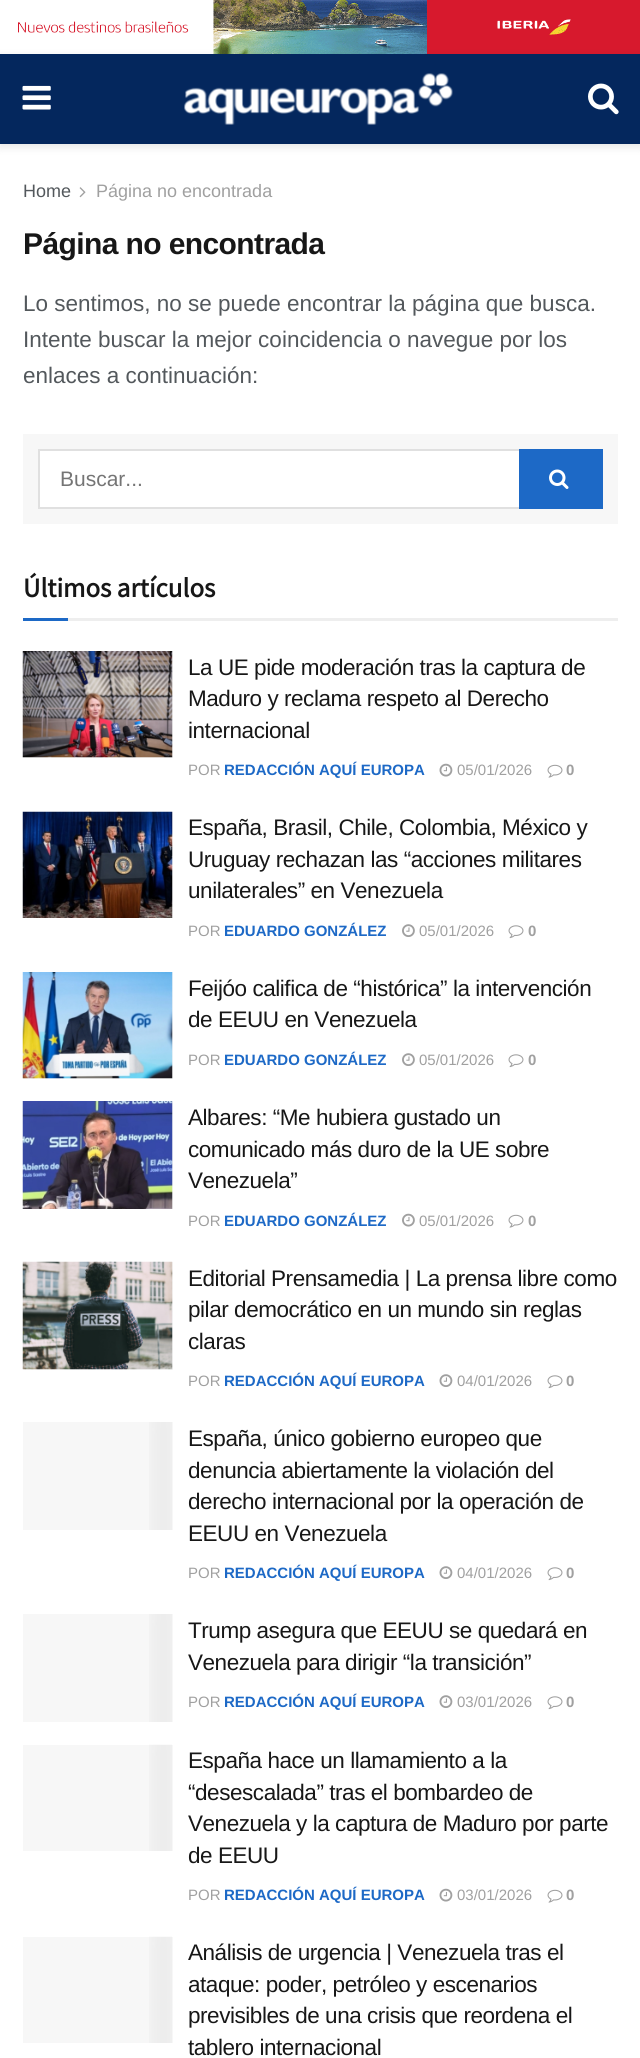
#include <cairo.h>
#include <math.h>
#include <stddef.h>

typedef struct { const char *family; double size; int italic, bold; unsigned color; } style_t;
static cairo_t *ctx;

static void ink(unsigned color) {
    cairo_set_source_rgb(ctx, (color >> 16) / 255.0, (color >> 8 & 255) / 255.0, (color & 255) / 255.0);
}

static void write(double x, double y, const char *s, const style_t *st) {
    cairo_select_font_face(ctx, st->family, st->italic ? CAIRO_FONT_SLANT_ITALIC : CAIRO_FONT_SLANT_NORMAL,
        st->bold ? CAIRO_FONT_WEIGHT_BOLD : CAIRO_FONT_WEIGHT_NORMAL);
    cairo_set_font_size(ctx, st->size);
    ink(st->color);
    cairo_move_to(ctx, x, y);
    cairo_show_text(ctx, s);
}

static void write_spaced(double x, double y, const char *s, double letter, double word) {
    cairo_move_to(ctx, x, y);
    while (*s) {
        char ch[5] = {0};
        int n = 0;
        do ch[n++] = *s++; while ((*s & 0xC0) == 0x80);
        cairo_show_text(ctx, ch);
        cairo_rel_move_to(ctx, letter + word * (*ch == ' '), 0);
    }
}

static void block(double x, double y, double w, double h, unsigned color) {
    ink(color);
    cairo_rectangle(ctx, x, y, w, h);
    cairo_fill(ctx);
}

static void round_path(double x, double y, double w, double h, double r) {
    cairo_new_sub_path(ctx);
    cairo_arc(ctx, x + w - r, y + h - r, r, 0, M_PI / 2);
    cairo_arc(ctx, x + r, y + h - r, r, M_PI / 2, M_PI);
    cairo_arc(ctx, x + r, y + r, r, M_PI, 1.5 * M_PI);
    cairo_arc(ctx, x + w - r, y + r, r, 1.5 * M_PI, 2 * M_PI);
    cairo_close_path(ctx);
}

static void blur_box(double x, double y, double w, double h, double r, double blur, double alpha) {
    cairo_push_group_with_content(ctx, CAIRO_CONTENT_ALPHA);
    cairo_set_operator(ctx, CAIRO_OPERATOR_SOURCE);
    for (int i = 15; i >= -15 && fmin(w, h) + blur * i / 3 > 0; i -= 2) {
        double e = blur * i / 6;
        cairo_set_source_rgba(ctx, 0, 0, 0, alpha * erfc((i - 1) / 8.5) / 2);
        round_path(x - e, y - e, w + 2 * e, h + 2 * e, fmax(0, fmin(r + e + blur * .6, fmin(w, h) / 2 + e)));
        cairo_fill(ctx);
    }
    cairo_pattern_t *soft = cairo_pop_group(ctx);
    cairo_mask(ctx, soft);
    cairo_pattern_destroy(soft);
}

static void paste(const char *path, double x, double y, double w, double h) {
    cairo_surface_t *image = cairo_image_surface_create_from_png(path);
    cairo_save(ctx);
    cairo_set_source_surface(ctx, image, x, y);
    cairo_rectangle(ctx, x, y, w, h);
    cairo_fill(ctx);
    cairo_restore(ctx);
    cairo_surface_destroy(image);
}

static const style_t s1 = {"Liberation Sans", 18, 0, 0, 0x53585c};
static const style_t s2 = {"Liberation Sans", 18, 0, 0, 0xa0a0a0};
static const style_t s3 = {"Liberation Sans", 22.5, 0, 0, 0x53585c};
static const style_t s4 = {"Liberation Sans", 21, 0, 0, 0x757575};
static const style_t s5 = {"Source Sans Pro", 27, 0, 1, 0x171717};
static const style_t s6 = {"Liberation Sans", 15, 0, 0, 0xa0a0a0};
static const style_t s7 = {"Liberation Sans", 15, 0, 1, 0x1d69c6};
static const style_t s8 = {"Liberation Sans", 15, 0, 1, 0xa0a0a0};

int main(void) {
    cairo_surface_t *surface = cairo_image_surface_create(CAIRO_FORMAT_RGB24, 640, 2058);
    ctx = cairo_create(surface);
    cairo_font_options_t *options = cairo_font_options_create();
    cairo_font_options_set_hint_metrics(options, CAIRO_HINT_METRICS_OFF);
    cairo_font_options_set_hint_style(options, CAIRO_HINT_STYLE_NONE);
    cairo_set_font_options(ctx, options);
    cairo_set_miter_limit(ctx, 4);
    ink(0xffffff);
    cairo_paint(ctx);
    paste("pic1.png", 0, 0, 640, 54);
    ink(0x000000);
    blur_box(0, 57, 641, 90, 0, 4.5, 0.1);
    block(0, 54, 640, 90, 0x04275d);
    paste("pic2.png", 22, 85, 29, 25);
    paste("pic3.png", 184, 73, 269, 52);
    paste("pic4.png", 588, 83, 31, 32);
    write(23, 197, "Home", &s1);
    paste("pic5.png", 79, 187, 7, 11);
    write(96, 197, "Página no encontrada", &s2);
    cairo_select_font_face(ctx, "Liberation Sans", CAIRO_FONT_SLANT_NORMAL, CAIRO_FONT_WEIGHT_BOLD);
    cairo_set_font_size(ctx, 30);
    ink(0x171717);
    write_spaced(23, 254, "Página no encontrada", -0.6, 0);
    write(23, 311, "Lo sentimos, no se puede encontrar la página que busca.", &s3);
    write(23, 347, "Intente buscar la mejor coincidencia o navegue por los", &s3);
    write(23, 383, "enlaces a continuación:", &s3);
    block(23, 434, 595, 90, 0xf7f7f7);
    block(40, 451, 479, 56, 0xffffff);
    cairo_rectangle(ctx, 39, 450, 563, 58);
    ink(0xe0e0e0);
    cairo_stroke(ctx);
    write(60, 486, "Buscar...", &s4);
    block(519, 449, 84, 60, 0x1d69c6);
    paste("pic6.png", 549, 469, 20, 20);
    block(68, 618, 550, 3, 0xeeeeee);
    write(23, 597, "Últimos artículos", &s5);
    block(23, 618, 45, 3, 0x1d69c6);
    block(23, 651, 150, 107, 0xf7f7f7);
    paste("pic7.png", 22, 651, 151, 107);
    cairo_select_font_face(ctx, "Liberation Sans", CAIRO_FONT_SLANT_NORMAL, CAIRO_FONT_WEIGHT_NORMAL);
    cairo_set_font_size(ctx, 22.5);
    ink(0x171717);
    write_spaced(188, 675, "La UE pide moderación tras la captura de", -0.45, 0);
    write_spaced(188, 706, "Maduro y reclama respeto al Derecho", -0.45, 0);
    write_spaced(188, 738, "internacional", -0.45, 0);
    write(188, 775, "POR", &s6);
    write(224, 775, "REDACCIÓN AQUÍ EUROPA", &s7);
    paste("pic8.png", 439, 763, 14, 14);
    write(457, 775, "05/01/2026", &s6);
    paste("pic9.png", 547, 764, 16, 14);
    write(566, 775, "0", &s8);
    block(172, 812, 1, 106, 0xf7f7f7);
    paste("pic10.png", 22, 811, 151, 107);
    cairo_select_font_face(ctx, "Liberation Sans", CAIRO_FONT_SLANT_NORMAL, CAIRO_FONT_WEIGHT_NORMAL);
    cairo_set_font_size(ctx, 22.5);
    ink(0x171717);
    write_spaced(188, 835, "España, Brasil, Chile, Colombia, México y", -0.45, 0);
    write_spaced(188, 867, "Uruguay rechazan las “acciones militares", -0.45, 0);
    write_spaced(188, 898, "unilaterales” en Venezuela", -0.45, 0);
    write(188, 936, "POR", &s6);
    write(224, 936, "EDUARDO GONZÁLEZ", &s7);
    paste("pic11.png", 402, 924, 13, 13);
    write(419, 936, "05/01/2026", &s6);
    paste("pic12.png", 508, 925, 16, 14);
    write(528, 936, "0", &s8);
    block(23, 972, 150, 107, 0xf7f7f7);
    paste("pic13.png", 22, 972, 151, 107);
    cairo_select_font_face(ctx, "Liberation Sans", CAIRO_FONT_SLANT_NORMAL, CAIRO_FONT_WEIGHT_NORMAL);
    cairo_set_font_size(ctx, 22.5);
    ink(0x171717);
    write_spaced(188, 996, "Feijóo califica de “histórica” la intervención", -0.45, 0);
    write_spaced(188, 1027, "de EEUU en Venezuela", -0.45, 0);
    write(188, 1065, "POR", &s6);
    write(224, 1065, "EDUARDO GONZÁLEZ", &s7);
    paste("pic11.png", 402, 1053, 13, 13);
    write(419, 1065, "05/01/2026", &s6);
    paste("pic12.png", 508, 1054, 16, 14);
    write(528, 1065, "0", &s8);
    block(172, 1101, 1, 108, 0xf7f7f7);
    paste("pic14.png", 22, 1101, 151, 108);
    cairo_select_font_face(ctx, "Liberation Sans", CAIRO_FONT_SLANT_NORMAL, CAIRO_FONT_WEIGHT_NORMAL);
    cairo_set_font_size(ctx, 22.5);
    ink(0x171717);
    write_spaced(188, 1125, "Albares: “Me hubiera gustado un", -0.45, 0);
    write_spaced(188, 1157, "comunicado más duro de la UE sobre", -0.45, 0);
    write_spaced(188, 1188, "Venezuela”", -0.45, 0);
    write(188, 1226, "POR", &s6);
    write(224, 1226, "EDUARDO GONZÁLEZ", &s7);
    paste("pic15.png", 402, 1213, 13, 14);
    write(419, 1226, "05/01/2026", &s6);
    paste("pic9.png", 508, 1214, 16, 14);
    write(528, 1226, "0", &s8);
    block(23, 1262, 150, 108, 0xf7f7f7);
    paste("pic16.png", 22, 1261, 151, 109);
    cairo_select_font_face(ctx, "Liberation Sans", CAIRO_FONT_SLANT_NORMAL, CAIRO_FONT_WEIGHT_NORMAL);
    cairo_set_font_size(ctx, 22.5);
    ink(0x171717);
    write_spaced(188, 1286, "Editorial Prensamedia | La prensa libre como", -0.45, 0);
    write_spaced(188, 1317, "pilar democrático en un mundo sin reglas", -0.45, 0);
    write_spaced(188, 1349, "claras", -0.45, 0);
    write(188, 1386, "POR", &s6);
    write(224, 1386, "REDACCIÓN AQUÍ EUROPA", &s7);
    paste("pic17.png", 439, 1374, 14, 13);
    write(457, 1386, "04/01/2026", &s6);
    paste("pic12.png", 547, 1375, 16, 14);
    write(566, 1386, "0", &s8);
    block(23, 1422, 150, 108, 0xf7f7f7);
    paste("pic18.png", 149, 1422, 23, 108);
    cairo_select_font_face(ctx, "Liberation Sans", CAIRO_FONT_SLANT_NORMAL, CAIRO_FONT_WEIGHT_NORMAL);
    cairo_set_font_size(ctx, 22.5);
    ink(0x171717);
    write_spaced(188, 1446, "España, único gobierno europeo que", -0.45, 0);
    write_spaced(188, 1478, "denuncia abiertamente la violación del", -0.45, 0);
    write_spaced(188, 1509, "derecho internacional por la operación de", -0.45, 0);
    write_spaced(188, 1541, "EEUU en Venezuela", -0.45, 0);
    write(188, 1578, "POR", &s6);
    write(224, 1578, "REDACCIÓN AQUÍ EUROPA", &s7);
    paste("pic17.png", 439, 1566, 14, 13);
    write(457, 1578, "04/01/2026", &s6);
    paste("pic12.png", 547, 1567, 16, 14);
    write(566, 1578, "0", &s8);
    block(23, 1614, 150, 108, 0xf7f7f7);
    paste("pic18.png", 149, 1614, 23, 108);
    cairo_select_font_face(ctx, "Liberation Sans", CAIRO_FONT_SLANT_NORMAL, CAIRO_FONT_WEIGHT_NORMAL);
    cairo_set_font_size(ctx, 22.5);
    ink(0x171717);
    write_spaced(188, 1638, "Trump asegura que EEUU se quedará en", -0.45, 0);
    write_spaced(188, 1670, "Venezuela para dirigir “la transición”", -0.45, 0);
    write(188, 1707, "POR", &s6);
    write(224, 1707, "REDACCIÓN AQUÍ EUROPA", &s7);
    paste("pic17.png", 439, 1695, 14, 13);
    write(457, 1707, "03/01/2026", &s6);
    paste("pic12.png", 547, 1696, 16, 14);
    write(566, 1707, "0", &s8);
    block(23, 1745, 150, 106, 0xf7f7f7);
    paste("pic19.png", 149, 1744, 23, 107);
    cairo_select_font_face(ctx, "Liberation Sans", CAIRO_FONT_SLANT_NORMAL, CAIRO_FONT_WEIGHT_NORMAL);
    cairo_set_font_size(ctx, 22.5);
    ink(0x171717);
    write_spaced(188, 1768, "España hace un llamamiento a la", -0.45, 0);
    write_spaced(188, 1800, "“desescalada” tras el bombardeo de", -0.45, 0);
    write_spaced(188, 1831, "Venezuela y la captura de Maduro por parte", -0.45, 0);
    write_spaced(188, 1863, "de EEUU", -0.45, 0);
    write(188, 1900, "POR", &s6);
    write(224, 1900, "REDACCIÓN AQUÍ EUROPA", &s7);
    paste("pic8.png", 439, 1888, 14, 14);
    write(457, 1900, "03/01/2026", &s6);
    paste("pic9.png", 547, 1889, 16, 14);
    write(566, 1900, "0", &s8);
    block(23, 1937, 150, 106, 0xf7f7f7);
    paste("pic19.png", 149, 1936, 23, 107);
    cairo_select_font_face(ctx, "Liberation Sans", CAIRO_FONT_SLANT_NORMAL, CAIRO_FONT_WEIGHT_NORMAL);
    cairo_set_font_size(ctx, 22.5);
    ink(0x171717);
    write_spaced(188, 1960, "Análisis de urgencia | Venezuela tras el", -0.45, 0);
    write_spaced(188, 1992, "ataque: poder, petróleo y escenarios", -0.45, 0);
    write_spaced(188, 2023, "previsibles de una crisis que reordena el", -0.45, 0);
    write_spaced(188, 2055, "tablero internacional", -0.45, 0);
    cairo_surface_write_to_png(surface, "screenshot.png");
    cairo_font_options_destroy(options);
    cairo_destroy(ctx);
    cairo_surface_destroy(surface);
    return 0;
}
